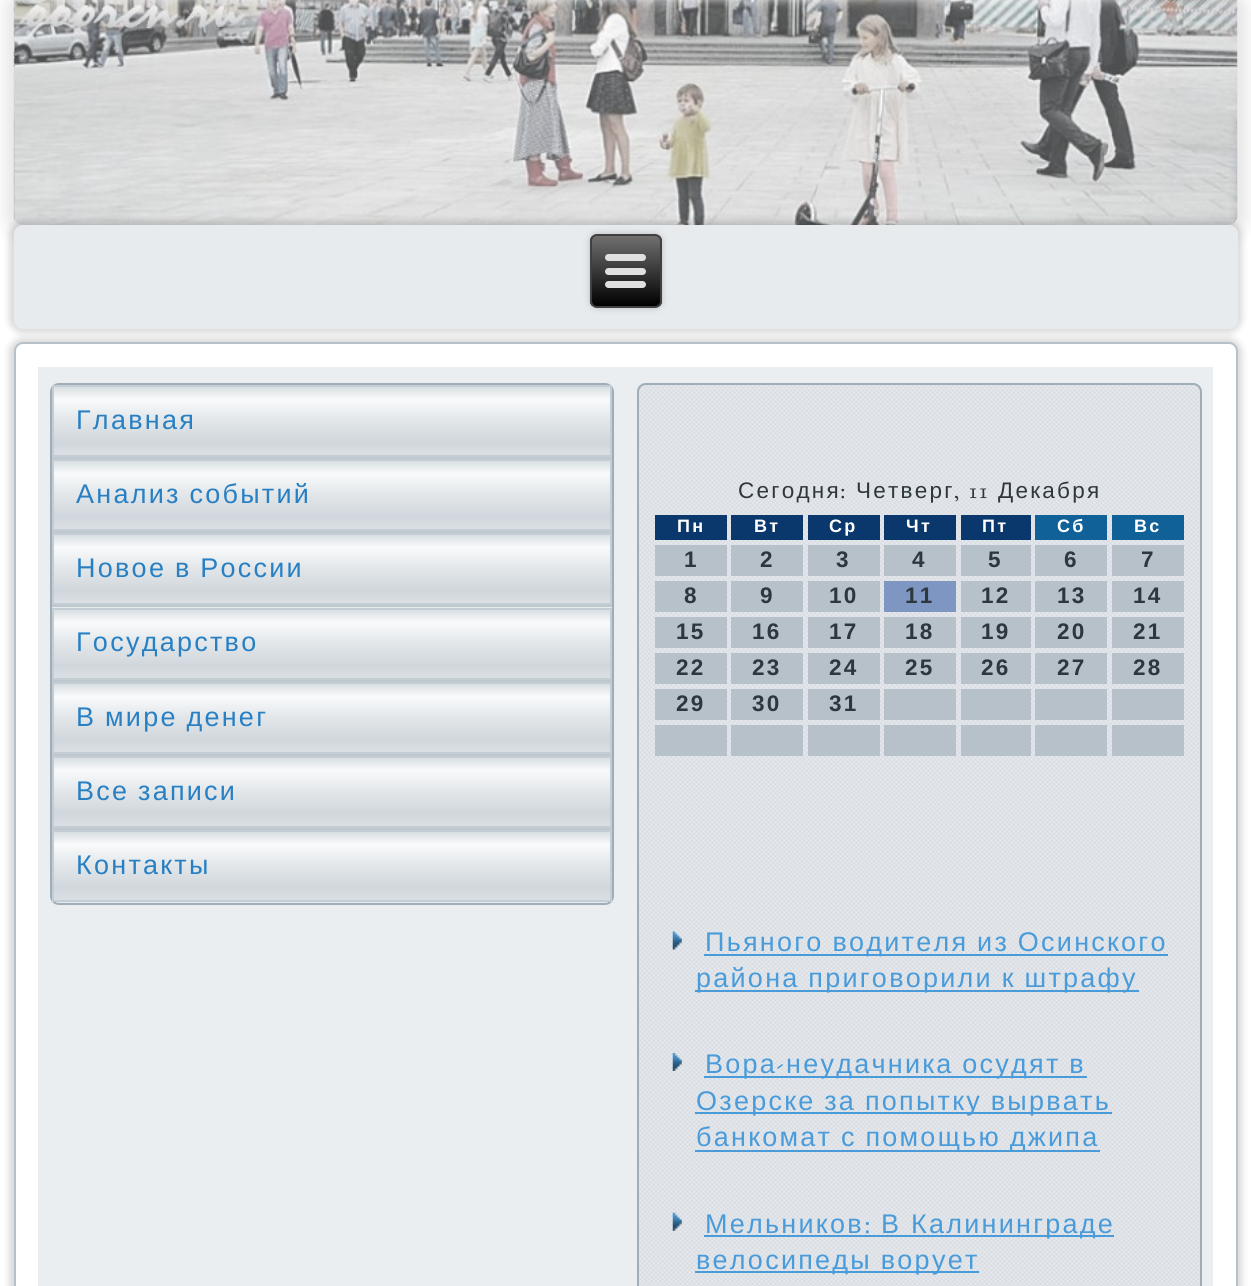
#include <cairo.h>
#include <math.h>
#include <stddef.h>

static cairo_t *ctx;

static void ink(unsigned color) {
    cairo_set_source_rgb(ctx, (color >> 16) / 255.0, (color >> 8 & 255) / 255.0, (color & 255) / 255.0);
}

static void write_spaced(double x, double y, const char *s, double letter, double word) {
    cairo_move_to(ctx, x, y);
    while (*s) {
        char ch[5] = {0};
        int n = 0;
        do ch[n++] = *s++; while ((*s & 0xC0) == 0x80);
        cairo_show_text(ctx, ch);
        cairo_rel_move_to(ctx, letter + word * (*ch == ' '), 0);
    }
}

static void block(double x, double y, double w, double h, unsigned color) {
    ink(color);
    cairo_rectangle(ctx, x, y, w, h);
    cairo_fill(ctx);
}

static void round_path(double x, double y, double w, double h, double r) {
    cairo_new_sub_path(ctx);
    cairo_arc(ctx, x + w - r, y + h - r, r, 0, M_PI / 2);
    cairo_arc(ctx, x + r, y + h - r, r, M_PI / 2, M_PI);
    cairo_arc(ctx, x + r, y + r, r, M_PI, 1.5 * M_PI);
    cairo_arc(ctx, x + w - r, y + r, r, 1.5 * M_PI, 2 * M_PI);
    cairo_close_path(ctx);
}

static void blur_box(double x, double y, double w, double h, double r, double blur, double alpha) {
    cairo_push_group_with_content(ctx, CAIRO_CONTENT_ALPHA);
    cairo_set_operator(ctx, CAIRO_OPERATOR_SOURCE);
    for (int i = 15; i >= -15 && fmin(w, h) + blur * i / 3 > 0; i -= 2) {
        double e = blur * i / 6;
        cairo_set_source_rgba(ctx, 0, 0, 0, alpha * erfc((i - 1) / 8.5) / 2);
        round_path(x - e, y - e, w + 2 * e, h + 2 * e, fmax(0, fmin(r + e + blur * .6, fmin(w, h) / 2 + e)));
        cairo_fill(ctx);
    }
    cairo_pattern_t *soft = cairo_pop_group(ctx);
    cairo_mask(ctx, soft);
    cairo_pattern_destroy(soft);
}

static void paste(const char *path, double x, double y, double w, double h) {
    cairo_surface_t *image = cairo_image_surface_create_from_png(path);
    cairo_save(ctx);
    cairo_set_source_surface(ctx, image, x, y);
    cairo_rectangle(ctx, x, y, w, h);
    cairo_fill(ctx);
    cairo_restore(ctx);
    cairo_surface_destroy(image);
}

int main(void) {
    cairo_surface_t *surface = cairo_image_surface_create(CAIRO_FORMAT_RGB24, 1251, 1286);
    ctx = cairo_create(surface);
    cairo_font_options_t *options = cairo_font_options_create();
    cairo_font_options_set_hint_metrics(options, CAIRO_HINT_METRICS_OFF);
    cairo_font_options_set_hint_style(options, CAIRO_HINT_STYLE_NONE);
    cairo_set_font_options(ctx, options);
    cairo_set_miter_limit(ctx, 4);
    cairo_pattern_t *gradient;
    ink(0xffffff);
    cairo_paint(ctx);
    ink(0x000000);
    blur_box(5, -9, 1242, 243, 18, 8, 0.1);
    paste("pic1.png", 13, 0, 1225, 225);
    blur_box(9, 338, 1233, 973, 14, 3.5, 0.15);
    ink(0xffffff);
    round_path(15, 343, 1222, 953, 8);
    cairo_fill_preserve(ctx);
    ink(0xb6c1c9);
    cairo_stroke(ctx);
    ink(0x000000);
    blur_box(9, 221, 1233, 112, 14, 3.5, 0.15);
    ink(0xe8ebee);
    round_path(14, 225, 1224, 104, 9);
    cairo_fill(ctx);
    ink(0x000000);
    blur_box(590, 234, 72, 74, 7, 3.5, 0.2);
    cairo_save(ctx);
    round_path(590, 234, 72, 74, 7);
    cairo_clip(ctx);
    gradient = cairo_pattern_create_linear(626, 236, 626, 306);
    cairo_pattern_add_color_stop_rgba(gradient, 0, 0.439, 0.439, 0.439, 1);
    cairo_pattern_add_color_stop_rgba(gradient, 1, 0, 0, 0, 1);
    cairo_set_source(ctx, gradient);
    cairo_pattern_destroy(gradient);
    cairo_rectangle(ctx, 590, 236, 72, 70);
    cairo_fill(ctx);
    cairo_restore(ctx);
    round_path(591, 235, 70, 72, 6);
    ink(0x404040);
    cairo_stroke(ctx);
    ink(0xe0e0e0);
    round_path(605, 254, 41, 7, 3.5);
    cairo_fill(ctx);
    round_path(605, 268, 41, 7, 3.5);
    cairo_fill(ctx);
    round_path(605, 281, 41, 7, 3.5);
    cairo_fill(ctx);
    block(38, 367, 1175, 919, 0xeaeef0);
    ink(0xe8ebee);
    round_path(51, 384, 562, 520, 8);
    cairo_fill_preserve(ctx);
    ink(0x9eadb7);
    cairo_stroke(ctx);
    gradient = cairo_pattern_create_linear(332, 385, 332, 457);
    cairo_pattern_add_color_stop_rgba(gradient, 0, 0.827, 0.855, 0.871, 1);
    cairo_pattern_add_color_stop_rgba(gradient, 0.2, 0.976, 0.98, 0.984, 1);
    cairo_pattern_add_color_stop_rgba(gradient, 0.5, 0.886, 0.902, 0.914, 1);
    cairo_pattern_add_color_stop_rgba(gradient, 0.8, 0.816, 0.843, 0.863, 1);
    cairo_pattern_add_color_stop_rgba(gradient, 1, 0.863, 0.882, 0.898, 1);
    cairo_set_source(ctx, gradient);
    cairo_pattern_destroy(gradient);
    cairo_rectangle(ctx, 54, 387, 556, 68);
    cairo_fill(ctx);
    cairo_rectangle(ctx, 53, 386, 558, 70);
    ink(0xc4cdd4);
    cairo_stroke(ctx);
    cairo_select_font_face(ctx, "Liberation Sans", CAIRO_FONT_SLANT_NORMAL, CAIRO_FONT_WEIGHT_NORMAL);
    cairo_set_font_size(ctx, 27);
    ink(0x2880c3);
    write_spaced(76, 429, "Главная", 2.25, 0);
    block(52, 457, 560, 2, 0xbec8cf);
    gradient = cairo_pattern_create_linear(332, 459, 332, 531);
    cairo_pattern_add_color_stop_rgba(gradient, 0, 0.827, 0.855, 0.871, 1);
    cairo_pattern_add_color_stop_rgba(gradient, 0.2, 0.976, 0.98, 0.984, 1);
    cairo_pattern_add_color_stop_rgba(gradient, 0.5, 0.886, 0.902, 0.914, 1);
    cairo_pattern_add_color_stop_rgba(gradient, 0.8, 0.816, 0.843, 0.863, 1);
    cairo_pattern_add_color_stop_rgba(gradient, 1, 0.863, 0.882, 0.898, 1);
    cairo_set_source(ctx, gradient);
    cairo_pattern_destroy(gradient);
    cairo_rectangle(ctx, 54, 461, 556, 68);
    cairo_fill(ctx);
    cairo_rectangle(ctx, 53, 460, 558, 70);
    ink(0xc4cdd4);
    cairo_stroke(ctx);
    ink(0x2880c3);
    write_spaced(76, 503, "Анализ событий", 2.25, -1);
    block(52, 531, 560, 2, 0xbec8cf);
    gradient = cairo_pattern_create_linear(332, 533, 332, 605);
    cairo_pattern_add_color_stop_rgba(gradient, 0, 0.827, 0.855, 0.871, 1);
    cairo_pattern_add_color_stop_rgba(gradient, 0.2, 0.976, 0.98, 0.984, 1);
    cairo_pattern_add_color_stop_rgba(gradient, 0.5, 0.886, 0.902, 0.914, 1);
    cairo_pattern_add_color_stop_rgba(gradient, 0.8, 0.816, 0.843, 0.863, 1);
    cairo_pattern_add_color_stop_rgba(gradient, 1, 0.863, 0.882, 0.898, 1);
    cairo_set_source(ctx, gradient);
    cairo_pattern_destroy(gradient);
    cairo_rectangle(ctx, 54, 535, 556, 68);
    cairo_fill(ctx);
    cairo_rectangle(ctx, 53, 534, 558, 70);
    ink(0xc4cdd4);
    cairo_stroke(ctx);
    ink(0x2880c3);
    write_spaced(76, 577, "Новое в России", 2.25, -1);
    block(52, 605, 560, 2, 0xbec8cf);
    gradient = cairo_pattern_create_linear(332, 608, 332, 680);
    cairo_pattern_add_color_stop_rgba(gradient, 0, 0.827, 0.855, 0.871, 1);
    cairo_pattern_add_color_stop_rgba(gradient, 0.2, 0.976, 0.98, 0.984, 1);
    cairo_pattern_add_color_stop_rgba(gradient, 0.5, 0.886, 0.902, 0.914, 1);
    cairo_pattern_add_color_stop_rgba(gradient, 0.8, 0.816, 0.843, 0.863, 1);
    cairo_pattern_add_color_stop_rgba(gradient, 1, 0.863, 0.882, 0.898, 1);
    cairo_set_source(ctx, gradient);
    cairo_pattern_destroy(gradient);
    cairo_rectangle(ctx, 54, 610, 556, 68);
    cairo_fill(ctx);
    cairo_rectangle(ctx, 53, 609, 558, 70);
    ink(0xc4cdd4);
    cairo_stroke(ctx);
    ink(0x2880c3);
    write_spaced(76, 651, "Государство", 2.25, 0);
    block(52, 680, 560, 2, 0xbec8cf);
    gradient = cairo_pattern_create_linear(332, 682, 332, 754);
    cairo_pattern_add_color_stop_rgba(gradient, 0, 0.827, 0.855, 0.871, 1);
    cairo_pattern_add_color_stop_rgba(gradient, 0.2, 0.976, 0.98, 0.984, 1);
    cairo_pattern_add_color_stop_rgba(gradient, 0.5, 0.886, 0.902, 0.914, 1);
    cairo_pattern_add_color_stop_rgba(gradient, 0.8, 0.816, 0.843, 0.863, 1);
    cairo_pattern_add_color_stop_rgba(gradient, 1, 0.863, 0.882, 0.898, 1);
    cairo_set_source(ctx, gradient);
    cairo_pattern_destroy(gradient);
    cairo_rectangle(ctx, 54, 684, 556, 68);
    cairo_fill(ctx);
    cairo_rectangle(ctx, 53, 683, 558, 70);
    ink(0xc4cdd4);
    cairo_stroke(ctx);
    ink(0x2880c3);
    write_spaced(76, 726, "В мире денег", 2.25, -1);
    block(52, 754, 560, 2, 0xbec8cf);
    gradient = cairo_pattern_create_linear(332, 756, 332, 828);
    cairo_pattern_add_color_stop_rgba(gradient, 0, 0.827, 0.855, 0.871, 1);
    cairo_pattern_add_color_stop_rgba(gradient, 0.2, 0.976, 0.98, 0.984, 1);
    cairo_pattern_add_color_stop_rgba(gradient, 0.5, 0.886, 0.902, 0.914, 1);
    cairo_pattern_add_color_stop_rgba(gradient, 0.8, 0.816, 0.843, 0.863, 1);
    cairo_pattern_add_color_stop_rgba(gradient, 1, 0.863, 0.882, 0.898, 1);
    cairo_set_source(ctx, gradient);
    cairo_pattern_destroy(gradient);
    cairo_rectangle(ctx, 54, 758, 556, 68);
    cairo_fill(ctx);
    cairo_rectangle(ctx, 53, 757, 558, 70);
    ink(0xc4cdd4);
    cairo_stroke(ctx);
    ink(0x2880c3);
    write_spaced(76, 800, "Все записи", 2.25, -1);
    block(52, 828, 560, 2, 0xbec8cf);
    gradient = cairo_pattern_create_linear(332, 830, 332, 902);
    cairo_pattern_add_color_stop_rgba(gradient, 0, 0.827, 0.855, 0.871, 1);
    cairo_pattern_add_color_stop_rgba(gradient, 0.2, 0.976, 0.98, 0.984, 1);
    cairo_pattern_add_color_stop_rgba(gradient, 0.5, 0.886, 0.902, 0.914, 1);
    cairo_pattern_add_color_stop_rgba(gradient, 0.8, 0.816, 0.843, 0.863, 1);
    cairo_pattern_add_color_stop_rgba(gradient, 1, 0.863, 0.882, 0.898, 1);
    cairo_set_source(ctx, gradient);
    cairo_pattern_destroy(gradient);
    cairo_rectangle(ctx, 54, 832, 556, 68);
    cairo_fill(ctx);
    cairo_rectangle(ctx, 53, 831, 558, 70);
    ink(0xc4cdd4);
    cairo_stroke(ctx);
    ink(0x2880c3);
    write_spaced(76, 874, "Контакты", 2.25, 0);
    ink(0xe8ebee);
    cairo_new_path(ctx);
    cairo_move_to(ctx, 646, 383);
    cairo_line_to(ctx, 1193, 383);
    cairo_curve_to(ctx, 1198, 383, 1202, 387, 1202, 392);
    cairo_line_to(ctx, 1202, 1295);
    cairo_line_to(ctx, 637, 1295);
    cairo_line_to(ctx, 637, 392);
    cairo_curve_to(ctx, 637, 387, 641, 383, 646, 383);
    cairo_close_path(ctx);
    cairo_fill(ctx);
    paste("pic2.png", 637, 383, 564, 903);
    cairo_new_path(ctx);
    cairo_move_to(ctx, 646, 384);
    cairo_line_to(ctx, 1193, 384);
    cairo_curve_to(ctx, 1197.5, 384, 1201, 387.5, 1201, 392);
    cairo_line_to(ctx, 1201, 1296);
    cairo_line_to(ctx, 638, 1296);
    cairo_line_to(ctx, 638, 392);
    cairo_curve_to(ctx, 638, 387.5, 641.5, 384, 646, 384);
    cairo_close_path(ctx);
    ink(0x9eadb7);
    cairo_stroke(ctx);
    cairo_set_font_size(ctx, 22.5);
    ink(0x2e373e);
    write_spaced(738, 498, "Сегодня", 2.25, 0);
    cairo_select_font_face(ctx, "Goudy Bookletter 1911", CAIRO_FONT_SLANT_NORMAL, CAIRO_FONT_WEIGHT_NORMAL);
    write_spaced(840, 498, ":", 2.25, 0);
    cairo_select_font_face(ctx, "Liberation Sans", CAIRO_FONT_SLANT_NORMAL, CAIRO_FONT_WEIGHT_NORMAL);
    write_spaced(856, 498, "Четверг", 2.25, 0);
    cairo_select_font_face(ctx, "Goudy Bookletter 1911", CAIRO_FONT_SLANT_NORMAL, CAIRO_FONT_WEIGHT_NORMAL);
    write_spaced(954, 498, ", 11", 2.25, 0);
    cairo_select_font_face(ctx, "Liberation Sans", CAIRO_FONT_SLANT_NORMAL, CAIRO_FONT_WEIGHT_NORMAL);
    write_spaced(998, 498, "Декабря", 2.25, 0);
    block(655, 515, 72, 25, 0x0a386c);
    cairo_select_font_face(ctx, "Liberation Sans", CAIRO_FONT_SLANT_NORMAL, CAIRO_FONT_WEIGHT_BOLD);
    cairo_set_font_size(ctx, 18);
    ink(0xffffff);
    write_spaced(677, 532, "Пн", 2.25, 0);
    block(731, 515, 72, 25, 0x0a386c);
    ink(0xffffff);
    write_spaced(754, 532, "Вт", 2.25, 0);
    block(808, 515, 72, 25, 0x0a386c);
    ink(0xffffff);
    write_spaced(829, 532, "Ср", 2.25, 0);
    block(884, 515, 72, 25, 0x0a386c);
    ink(0xffffff);
    write_spaced(906, 532, "Чт", 2.25, 0);
    block(961, 515, 70, 25, 0x0a386c);
    ink(0xffffff);
    write_spaced(982, 532, "Пт", 2.25, 0);
    block(1035, 515, 72, 25, 0x106197);
    ink(0xffffff);
    write_spaced(1057, 532, "Сб", 2.25, 0);
    block(1112, 515, 72, 25, 0x106197);
    ink(0xffffff);
    write_spaced(1134, 532, "Вс", 2.25, 0);
    block(655, 545, 72, 31, 0xb6c1c9);
    cairo_set_font_size(ctx, 22.5);
    ink(0x2e373e);
    write_spaced(684, 567, "1", 2.25, 0);
    block(731, 545, 72, 31, 0xb6c1c9);
    ink(0x2e373e);
    write_spaced(760, 567, "2", 2.25, 0);
    block(808, 545, 72, 31, 0xb6c1c9);
    ink(0x2e373e);
    write_spaced(836, 567, "3", 2.25, 0);
    block(884, 545, 72, 31, 0xb6c1c9);
    ink(0x2e373e);
    write_spaced(912, 567, "4", 2.25, 0);
    block(961, 545, 70, 31, 0xb6c1c9);
    ink(0x2e373e);
    write_spaced(988, 567, "5", 2.25, 0);
    block(1035, 545, 72, 31, 0xb6c1c9);
    ink(0x2e373e);
    write_spaced(1064, 567, "6", 2.25, 0);
    block(1112, 545, 72, 31, 0xb6c1c9);
    ink(0x2e373e);
    write_spaced(1141, 567, "7", 2.25, 0);
    block(655, 581, 72, 31, 0xb6c1c9);
    ink(0x2e373e);
    write_spaced(684, 603, "8", 2.25, 0);
    block(731, 581, 72, 31, 0xb6c1c9);
    ink(0x2e373e);
    write_spaced(760, 603, "9", 2.25, 0);
    block(808, 581, 72, 31, 0xb6c1c9);
    ink(0x2e373e);
    write_spaced(829, 603, "10", 2.25, 0);
    block(884, 581, 72, 31, 0x7e96c2);
    ink(0x2e373e);
    write_spaced(905, 603, "11", 2.25, 0);
    block(961, 581, 70, 31, 0xb6c1c9);
    ink(0x2e373e);
    write_spaced(981, 603, "12", 2.25, 0);
    block(1035, 581, 72, 31, 0xb6c1c9);
    ink(0x2e373e);
    write_spaced(1057, 603, "13", 2.25, 0);
    block(1112, 581, 72, 31, 0xb6c1c9);
    ink(0x2e373e);
    write_spaced(1133, 603, "14", 2.25, 0);
    block(655, 617, 72, 31, 0xb6c1c9);
    ink(0x2e373e);
    write_spaced(676, 639, "15", 2.25, 0);
    block(731, 617, 72, 31, 0xb6c1c9);
    ink(0x2e373e);
    write_spaced(752, 639, "16", 2.25, 0);
    block(808, 617, 72, 31, 0xb6c1c9);
    ink(0x2e373e);
    write_spaced(829, 639, "17", 2.25, 0);
    block(884, 617, 72, 31, 0xb6c1c9);
    ink(0x2e373e);
    write_spaced(905, 639, "18", 2.25, 0);
    block(961, 617, 70, 31, 0xb6c1c9);
    ink(0x2e373e);
    write_spaced(981, 639, "19", 2.25, 0);
    block(1035, 617, 72, 31, 0xb6c1c9);
    ink(0x2e373e);
    write_spaced(1057, 639, "20", 2.25, 0);
    block(1112, 617, 72, 31, 0xb6c1c9);
    ink(0x2e373e);
    write_spaced(1133, 639, "21", 2.25, 0);
    block(655, 653, 72, 31, 0xb6c1c9);
    ink(0x2e373e);
    write_spaced(676, 675, "22", 2.25, 0);
    block(731, 653, 72, 31, 0xb6c1c9);
    ink(0x2e373e);
    write_spaced(752, 675, "23", 2.25, 0);
    block(808, 653, 72, 31, 0xb6c1c9);
    ink(0x2e373e);
    write_spaced(829, 675, "24", 2.25, 0);
    block(884, 653, 72, 31, 0xb6c1c9);
    ink(0x2e373e);
    write_spaced(905, 675, "25", 2.25, 0);
    block(961, 653, 70, 31, 0xb6c1c9);
    ink(0x2e373e);
    write_spaced(981, 675, "26", 2.25, 0);
    block(1035, 653, 72, 31, 0xb6c1c9);
    ink(0x2e373e);
    write_spaced(1057, 675, "27", 2.25, 0);
    block(1112, 653, 72, 31, 0xb6c1c9);
    ink(0x2e373e);
    write_spaced(1133, 675, "28", 2.25, 0);
    block(655, 689, 72, 31, 0xb6c1c9);
    ink(0x2e373e);
    write_spaced(676, 711, "29", 2.25, 0);
    block(731, 689, 72, 31, 0xb6c1c9);
    ink(0x2e373e);
    write_spaced(752, 711, "30", 2.25, 0);
    block(808, 689, 72, 31, 0xb6c1c9);
    ink(0x2e373e);
    write_spaced(829, 711, "31", 2.25, 0);
    block(884, 689, 72, 31, 0xb6c1c9);
    block(961, 689, 70, 31, 0xb6c1c9);
    block(1035, 689, 72, 31, 0xb6c1c9);
    block(1112, 689, 72, 31, 0xb6c1c9);
    block(655, 725, 72, 31, 0xb6c1c9);
    block(731, 725, 72, 31, 0xb6c1c9);
    block(808, 725, 72, 31, 0xb6c1c9);
    block(884, 725, 72, 31, 0xb6c1c9);
    block(961, 725, 70, 31, 0xb6c1c9);
    block(1035, 725, 72, 31, 0xb6c1c9);
    block(1112, 725, 72, 31, 0xb6c1c9);
    paste("pic3.png", 672, 931, 10, 19);
    block(704, 954, 464, 2, 0x499bda);
    cairo_select_font_face(ctx, "Liberation Sans", CAIRO_FONT_SLANT_NORMAL, CAIRO_FONT_WEIGHT_NORMAL);
    cairo_set_font_size(ctx, 27);
    write_spaced(705, 951, "Пьяного водителя из Осинского", 2.25, -1);
    block(695, 990, 444, 2, 0x499bda);
    write_spaced(696, 987, "района приговорили к штрафу", 2.25, -1);
    paste("pic4.png", 672, 1053, 10, 18);
    block(704, 1076, 383, 2, 0x499bda);
    write_spaced(705, 1073, "Вора", 2.25, 0);
    cairo_select_font_face(ctx, "Goudy Bookletter 1911", CAIRO_FONT_SLANT_NORMAL, CAIRO_FONT_WEIGHT_NORMAL);
    write_spaced(777, 1073, "-", 2.25, 0);
    cairo_select_font_face(ctx, "Liberation Sans", CAIRO_FONT_SLANT_NORMAL, CAIRO_FONT_WEIGHT_NORMAL);
    write_spaced(786, 1073, "неудачника осудят в", 2.25, -1);
    block(695, 1112, 417, 2, 0x499bda);
    write_spaced(696, 1110, "Озерске за попытку вырвать", 2.25, -1);
    block(695, 1150, 405, 2, 0x499bda);
    write_spaced(696, 1146, "банкомат с помощью джипа", 2.25, -1);
    paste("pic5.png", 672, 1212, 10, 19);
    write_spaced(705, 1233, "Мельников", 2.25, 0);
    cairo_select_font_face(ctx, "Goudy Bookletter 1911", CAIRO_FONT_SLANT_NORMAL, CAIRO_FONT_WEIGHT_NORMAL);
    write_spaced(864, 1233, ":", 2.25, 0);
    block(704, 1235, 410, 2, 0x499bda);
    cairo_select_font_face(ctx, "Liberation Sans", CAIRO_FONT_SLANT_NORMAL, CAIRO_FONT_WEIGHT_NORMAL);
    write_spaced(881, 1233, "В Калининграде", 2.25, 0);
    block(695, 1271, 284, 2, 0x499bda);
    write_spaced(696, 1269, "велосипеды ворует", 2.25, -1);
    cairo_surface_write_to_png(surface, "screenshot.png");
    cairo_font_options_destroy(options);
    cairo_destroy(ctx);
    cairo_surface_destroy(surface);
    return 0;
}
